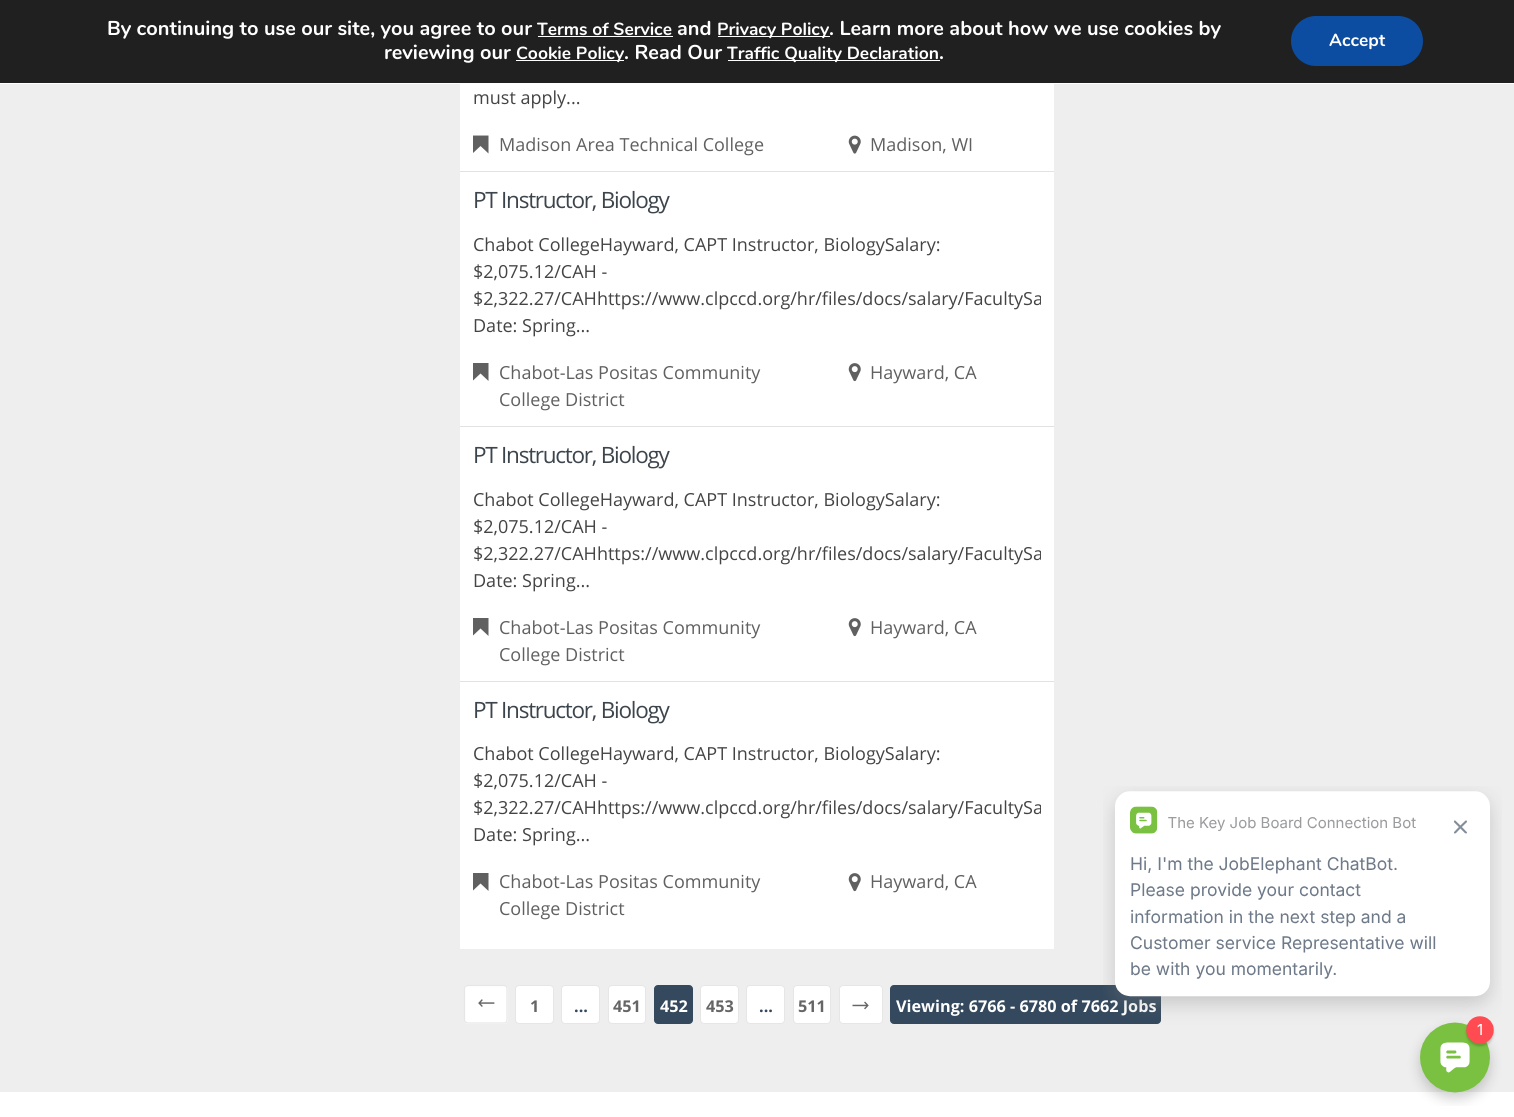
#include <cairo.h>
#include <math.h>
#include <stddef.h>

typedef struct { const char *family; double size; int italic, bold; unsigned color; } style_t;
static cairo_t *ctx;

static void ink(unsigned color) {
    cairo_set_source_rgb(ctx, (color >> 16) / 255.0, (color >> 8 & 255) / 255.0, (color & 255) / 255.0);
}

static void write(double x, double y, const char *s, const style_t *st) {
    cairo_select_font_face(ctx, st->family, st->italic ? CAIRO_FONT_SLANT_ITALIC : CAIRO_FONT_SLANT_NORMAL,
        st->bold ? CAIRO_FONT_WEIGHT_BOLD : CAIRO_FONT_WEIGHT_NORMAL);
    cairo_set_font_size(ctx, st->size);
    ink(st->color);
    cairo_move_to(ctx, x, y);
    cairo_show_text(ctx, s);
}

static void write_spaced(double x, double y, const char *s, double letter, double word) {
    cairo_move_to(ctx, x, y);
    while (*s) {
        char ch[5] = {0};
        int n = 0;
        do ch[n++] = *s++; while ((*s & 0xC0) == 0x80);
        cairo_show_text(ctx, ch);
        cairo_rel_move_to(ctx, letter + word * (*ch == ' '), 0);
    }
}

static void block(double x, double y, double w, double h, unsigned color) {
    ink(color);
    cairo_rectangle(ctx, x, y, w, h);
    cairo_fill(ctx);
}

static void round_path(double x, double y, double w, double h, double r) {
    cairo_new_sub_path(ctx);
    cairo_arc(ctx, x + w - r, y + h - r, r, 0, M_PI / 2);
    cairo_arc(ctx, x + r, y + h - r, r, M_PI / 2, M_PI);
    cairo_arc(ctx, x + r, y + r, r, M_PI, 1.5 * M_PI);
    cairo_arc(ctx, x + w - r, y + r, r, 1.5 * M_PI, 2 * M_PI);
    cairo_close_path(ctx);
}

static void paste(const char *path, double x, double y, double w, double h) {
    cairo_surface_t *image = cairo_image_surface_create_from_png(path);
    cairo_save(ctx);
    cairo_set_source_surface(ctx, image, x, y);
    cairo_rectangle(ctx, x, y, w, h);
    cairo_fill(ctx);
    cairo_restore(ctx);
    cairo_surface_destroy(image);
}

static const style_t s1 = {"Nunito", 20, 0, 1, 0xffffff};
static const style_t s2 = {"Nunito", 17.5, 0, 1, 0xffffff};
static const style_t s3 = {"Open Sans", 18, 0, 0, 0x444444};
static const style_t s4 = {"Open Sans", 18, 0, 0, 0x606060};
static const style_t s5 = {"Open Sans", 16.25, 0, 1, 0x666666};
static const style_t s6 = {"Open Sans", 16.25, 0, 1, 0x34495e};
static const style_t s7 = {"Open Sans", 16.25, 0, 1, 0xffffff};

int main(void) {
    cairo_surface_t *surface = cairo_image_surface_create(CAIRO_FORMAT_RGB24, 1514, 1117);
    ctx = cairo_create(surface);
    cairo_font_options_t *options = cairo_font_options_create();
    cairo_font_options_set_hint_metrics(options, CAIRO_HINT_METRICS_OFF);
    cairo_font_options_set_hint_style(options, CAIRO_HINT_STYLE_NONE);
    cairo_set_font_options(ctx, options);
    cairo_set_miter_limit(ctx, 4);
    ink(0xeeeeee);
    cairo_paint(ctx);
    block(0, 0, 1514, 83, 0x202020);
    block(0, 83, 1514, 1, 0xffffff);
    write(107, 35, "By continuing to use our site, you agree to our", &s1);
    write(537, 35, "Terms of Service", &s2);
    block(538, 36, 135, 1, 0xffffff);
    write(677, 35, "and", &s1);
    block(718, 36, 112, 1, 0xffffff);
    write(717, 35, "Privacy Policy", &s2);
    write(829, 35, ". Learn more about how we use cookies by", &s1);
    write(384, 59, "reviewing our", &s1);
    block(516, 60, 108, 1, 0xffffff);
    write(516, 59, "Cookie Policy", &s2);
    write(624, 59, ". Read Our", &s1);
    block(728, 60, 212, 1, 0xffffff);
    write(727, 59, "Traffic Quality Declaration", &s2);
    write(939, 59, ".", &s1);
    ink(0x0c4da2);
    round_path(1291, 16, 132, 50, 25);
    cairo_fill(ctx);
    write(1329, 46, "Accept", &s2);
    block(460, 84, 594, 865, 0xffffff);
    write(473, 104, "must apply...", &s3);
    cairo_save(ctx);
    cairo_rectangle(ctx, 473, 131, 568, 27);
    cairo_clip(ctx);
    ink(0x606060);
    cairo_new_path(ctx);
    cairo_move_to(ctx, 480.5, 146);
    cairo_line_to(ctx, 488.5, 153.5);
    cairo_line_to(ctx, 488.5, 135.5);
    cairo_line_to(ctx, 472.5, 135.5);
    cairo_line_to(ctx, 472.5, 153.5);
    cairo_close_path(ctx);
    cairo_fill(ctx);
    cairo_restore(ctx);
    write(499, 151, "Madison Area Technical College", &s4);
    paste("pic1.png", 848, 135, 13, 19);
    write(870, 151, "Madison, WI", &s4);
    block(460, 171, 594, 1, 0xe2e2e2);
    cairo_set_font_size(ctx, 22.5);
    ink(0x3d454c);
    write_spaced(473, 208, "PT Instructor, Biology", -1.25, 0);
    write(473, 251, "Chabot CollegeHayward, CAPT Instructor, BiologySalary:", &s3);
    write(473, 278, "$2,075.12/CAH -", &s3);
    cairo_save(ctx);
    cairo_rectangle(ctx, 473, 173, 568, 253);
    cairo_clip(ctx);
    write(473, 305, "$2,322.27/CAHhttps://www.clpccd.org/hr/files/docs/salary/FacultySa", &s3);
    cairo_restore(ctx);
    write(473, 332, "Date: Spring...", &s3);
    cairo_save(ctx);
    cairo_rectangle(ctx, 473, 359, 568, 54);
    cairo_clip(ctx);
    ink(0x606060);
    cairo_new_path(ctx);
    cairo_move_to(ctx, 480.5, 373.5);
    cairo_line_to(ctx, 488.5, 381);
    cairo_line_to(ctx, 488.5, 363);
    cairo_line_to(ctx, 472.5, 363);
    cairo_line_to(ctx, 472.5, 381);
    cairo_close_path(ctx);
    cairo_fill(ctx);
    cairo_restore(ctx);
    write(499, 379, "Chabot-Las Positas Community", &s4);
    write(499, 406, "College District", &s4);
    paste("pic2.png", 848, 363, 13, 19);
    write(870, 379, "Hayward, CA", &s4);
    block(460, 426, 594, 1, 0xe2e2e2);
    cairo_set_font_size(ctx, 22.5);
    ink(0x3d454c);
    write_spaced(473, 463, "PT Instructor, Biology", -1.25, 0);
    write(473, 506, "Chabot CollegeHayward, CAPT Instructor, BiologySalary:", &s3);
    write(473, 533, "$2,075.12/CAH -", &s3);
    cairo_save(ctx);
    cairo_rectangle(ctx, 473, 428, 568, 253);
    cairo_clip(ctx);
    write(473, 560, "$2,322.27/CAHhttps://www.clpccd.org/hr/files/docs/salary/FacultySa", &s3);
    cairo_restore(ctx);
    write(473, 587, "Date: Spring...", &s3);
    cairo_save(ctx);
    cairo_rectangle(ctx, 473, 614, 568, 54);
    cairo_clip(ctx);
    ink(0x606060);
    cairo_new_path(ctx);
    cairo_move_to(ctx, 480.5, 628.5);
    cairo_line_to(ctx, 488.5, 636);
    cairo_line_to(ctx, 488.5, 618);
    cairo_line_to(ctx, 472.5, 618);
    cairo_line_to(ctx, 472.5, 636);
    cairo_close_path(ctx);
    cairo_fill(ctx);
    cairo_restore(ctx);
    write(499, 634, "Chabot-Las Positas Community", &s4);
    write(499, 661, "College District", &s4);
    paste("pic2.png", 848, 618, 13, 19);
    write(870, 634, "Hayward, CA", &s4);
    block(460, 681, 594, 1, 0xe2e2e2);
    cairo_set_font_size(ctx, 22.5);
    ink(0x3d454c);
    write_spaced(473, 718, "PT Instructor, Biology", -1.25, 0);
    write(473, 760, "Chabot CollegeHayward, CAPT Instructor, BiologySalary:", &s3);
    write(473, 787, "$2,075.12/CAH -", &s3);
    cairo_save(ctx);
    cairo_rectangle(ctx, 473, 683, 568, 253);
    cairo_clip(ctx);
    write(473, 814, "$2,322.27/CAHhttps://www.clpccd.org/hr/files/docs/salary/FacultySa", &s3);
    cairo_restore(ctx);
    write(473, 841, "Date: Spring...", &s3);
    cairo_save(ctx);
    cairo_rectangle(ctx, 473, 869, 568, 54);
    cairo_clip(ctx);
    ink(0x606060);
    cairo_new_path(ctx);
    cairo_move_to(ctx, 480.5, 883.5);
    cairo_line_to(ctx, 488.5, 891);
    cairo_line_to(ctx, 488.5, 873);
    cairo_line_to(ctx, 472.5, 873);
    cairo_line_to(ctx, 472.5, 891);
    cairo_close_path(ctx);
    cairo_fill(ctx);
    cairo_restore(ctx);
    write(499, 888, "Chabot-Las Positas Community", &s4);
    write(499, 915, "College District", &s4);
    paste("pic2.png", 848, 873, 13, 19);
    write(870, 888, "Hayward, CA", &s4);
    ink(0xffffff);
    cairo_new_path(ctx);
    cairo_move_to(ctx, 504, 1024);
    cairo_line_to(ctx, 468, 1024);
    cairo_curve_to(ctx, 466, 1024, 464, 1022, 464, 1020);
    cairo_line_to(ctx, 464, 989);
    cairo_curve_to(ctx, 464, 987, 466, 985, 468, 985);
    cairo_line_to(ctx, 504, 985);
    cairo_curve_to(ctx, 506, 985, 508, 987, 508, 989);
    cairo_line_to(ctx, 508, 1020);
    cairo_curve_to(ctx, 508, 1022, 506, 1024, 504, 1024);
    cairo_close_path(ctx);
    cairo_fill(ctx);
    cairo_new_path(ctx);
    cairo_move_to(ctx, 504, 1023);
    cairo_line_to(ctx, 468, 1023);
    cairo_curve_to(ctx, 466, 1023, 464.5, 1021.5, 464.5, 1020);
    cairo_line_to(ctx, 464.5, 988.5);
    cairo_curve_to(ctx, 464.5, 987, 466, 985.5, 468, 985.5);
    cairo_line_to(ctx, 504, 985.5);
    cairo_curve_to(ctx, 506, 985.5, 507, 987, 507, 988.5);
    cairo_line_to(ctx, 507, 1020);
    cairo_curve_to(ctx, 507, 1021.5, 506, 1023, 504, 1023);
    cairo_close_path(ctx);
    ink(0xe6e6e6);
    cairo_set_line_width(ctx, 1.2);
    cairo_stroke(ctx);
    paste("pic3.png", 478, 999, 17, 8);
    ink(0xffffff);
    round_path(515.5, 985.5, 38, 38, 3.5);
    cairo_fill_preserve(ctx);
    ink(0xe6e6e6);
    cairo_set_line_width(ctx, 1);
    cairo_stroke(ctx);
    write(530, 1012, "1", &s5);
    ink(0xffffff);
    round_path(561.5, 985.5, 38, 38, 3.5);
    cairo_fill_preserve(ctx);
    ink(0xe6e6e6);
    cairo_stroke(ctx);
    write(574, 1012, "...", &s6);
    ink(0xffffff);
    round_path(608.5, 985.5, 37, 38, 3.5);
    cairo_fill_preserve(ctx);
    ink(0xe6e6e6);
    cairo_stroke(ctx);
    write(613, 1012, "451", &s5);
    ink(0x34495e);
    round_path(654.5, 985.5, 38, 38, 3.5);
    cairo_fill_preserve(ctx);
    cairo_stroke(ctx);
    write(660, 1012, "452", &s7);
    round_path(700.5, 985.5, 38, 38, 3.5);
    cairo_fill_preserve(ctx);
    ink(0xe6e6e6);
    cairo_stroke(ctx);
    write(706, 1012, "453", &s5);
    ink(0xffffff);
    round_path(746.5, 985.5, 38, 38, 3.5);
    cairo_fill_preserve(ctx);
    ink(0xe6e6e6);
    cairo_stroke(ctx);
    write(759, 1012, "...", &s6);
    ink(0xffffff);
    round_path(793.5, 985.5, 37, 38, 3.5);
    cairo_fill_preserve(ctx);
    ink(0xe6e6e6);
    cairo_stroke(ctx);
    write(798, 1012, "511", &s5);
    ink(0xffffff);
    round_path(839.5, 985.5, 43, 38, 3.5);
    cairo_fill_preserve(ctx);
    ink(0xe6e6e6);
    cairo_stroke(ctx);
    paste("pic4.png", 852, 1001, 17, 9);
    ink(0x34495e);
    round_path(890.5, 985.5, 270, 38, 3.5);
    cairo_fill_preserve(ctx);
    cairo_stroke(ctx);
    write(896, 1012, "Viewing: 6766 - 6780 of 7662 Jobs", &s7);
    block(0, 1092, 1514, 25, 0xffffff);
    paste("pic5.png", 1103, 786, 399, 320);
    cairo_surface_write_to_png(surface, "screenshot.png");
    cairo_font_options_destroy(options);
    cairo_destroy(ctx);
    cairo_surface_destroy(surface);
    return 0;
}
